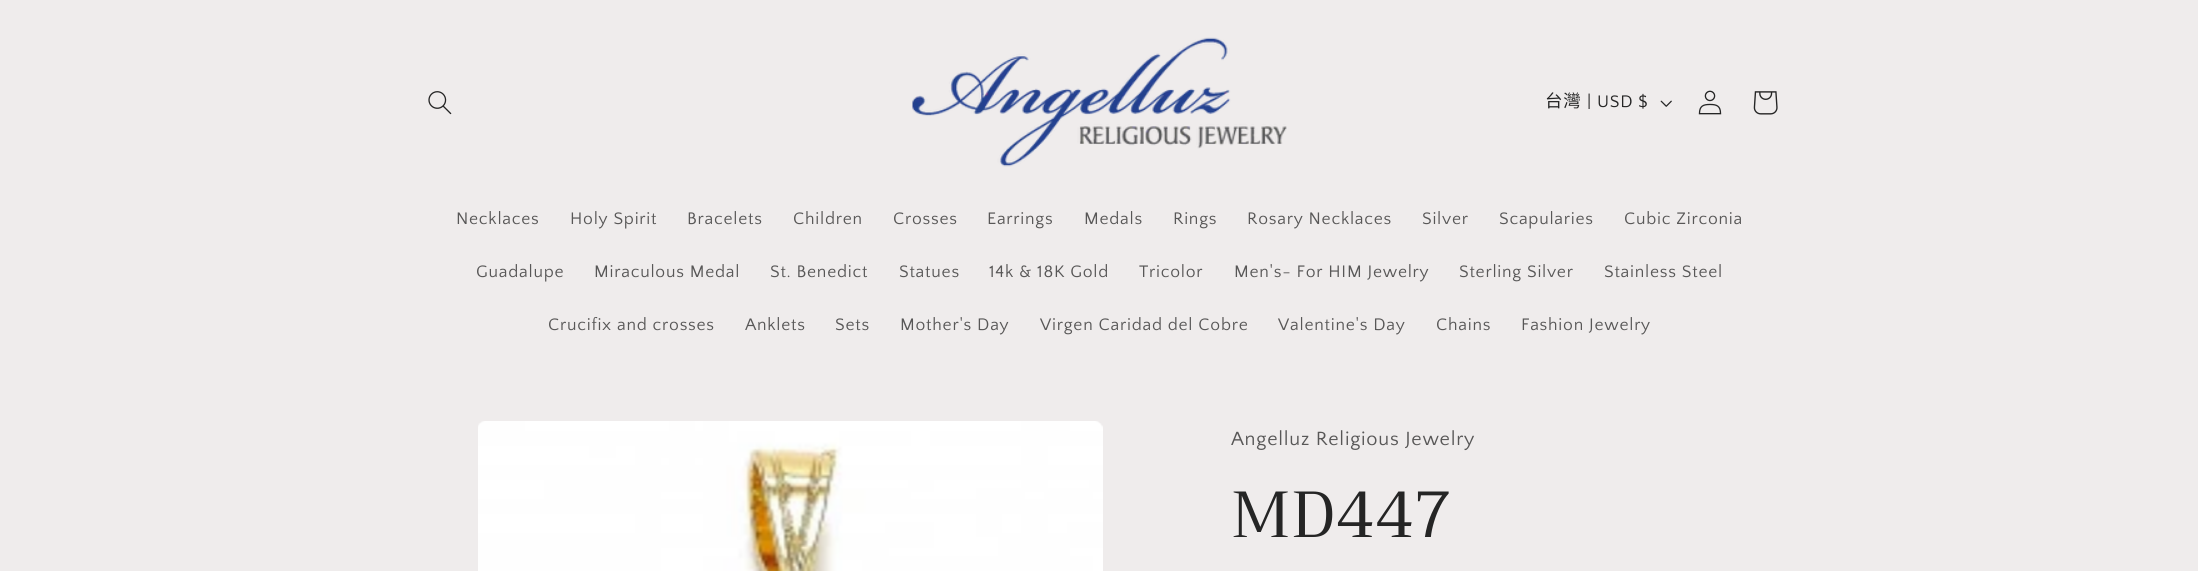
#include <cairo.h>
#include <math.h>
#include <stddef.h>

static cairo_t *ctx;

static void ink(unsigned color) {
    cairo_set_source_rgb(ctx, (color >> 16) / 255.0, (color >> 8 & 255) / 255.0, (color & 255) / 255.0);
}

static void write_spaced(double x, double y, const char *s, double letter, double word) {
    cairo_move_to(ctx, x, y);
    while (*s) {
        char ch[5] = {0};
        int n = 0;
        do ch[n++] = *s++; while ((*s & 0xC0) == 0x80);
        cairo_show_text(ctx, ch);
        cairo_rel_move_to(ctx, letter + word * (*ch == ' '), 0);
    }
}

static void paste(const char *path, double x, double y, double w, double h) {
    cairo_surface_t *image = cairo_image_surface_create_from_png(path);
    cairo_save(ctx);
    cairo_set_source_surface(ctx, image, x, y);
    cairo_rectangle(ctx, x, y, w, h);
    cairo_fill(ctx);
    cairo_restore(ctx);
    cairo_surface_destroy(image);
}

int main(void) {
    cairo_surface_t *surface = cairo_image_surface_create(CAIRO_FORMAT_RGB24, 2198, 571);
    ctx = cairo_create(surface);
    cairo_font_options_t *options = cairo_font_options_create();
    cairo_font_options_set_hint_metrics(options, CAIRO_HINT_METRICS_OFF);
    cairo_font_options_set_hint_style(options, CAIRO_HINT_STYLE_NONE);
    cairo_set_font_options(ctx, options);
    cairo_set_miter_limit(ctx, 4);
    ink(0xefecec);
    cairo_paint(ctx);
    paste("pic1.png", 428, 91, 24, 24);
    paste("pic2.png", 912, 37, 375, 130);
    cairo_select_font_face(ctx, "Noto Sans CJK TC", CAIRO_FONT_SLANT_NORMAL, CAIRO_FONT_WEIGHT_NORMAL);
    cairo_set_font_size(ctx, 17.5);
    ink(0x252525);
    write_spaced(1545, 107, "台灣", 0.75, 0);
    cairo_select_font_face(ctx, "Quattrocento Sans", CAIRO_FONT_SLANT_NORMAL, CAIRO_FONT_WEIGHT_NORMAL);
    write_spaced(1587, 107, "| USD $", 0.75, 0);
    paste("pic3.png", 1660, 100, 12, 7);
    paste("pic4.png", 1698, 90, 24, 25);
    paste("pic5.png", 1753, 91, 25, 24);
    ink(0x585757);
    write_spaced(456, 224, "Necklaces", 0.75, 0);
    write_spaced(570, 224, "Holy Spirit", 0.75, 0);
    write_spaced(687, 224, "Bracelets", 0.75, 0);
    write_spaced(793, 224, "Children", 0.75, 0);
    write_spaced(893, 224, "Crosses", 0.75, 0);
    write_spaced(987, 224, "Earrings", 0.75, 0);
    write_spaced(1084, 224, "Medals", 0.75, 0);
    write_spaced(1173, 224, "Rings", 0.75, 0);
    write_spaced(1247, 224, "Rosary Necklaces", 0.75, 0);
    write_spaced(1422, 224, "Silver", 0.75, 0);
    write_spaced(1499, 224, "Scapularies", 0.75, 0);
    write_spaced(1624, 224, "Cubic Zirconia", 0.75, 0);
    write_spaced(476, 277, "Guadalupe", 0.75, 0);
    write_spaced(594, 277, "Miraculous Medal", 0.75, 0);
    write_spaced(770, 277, "St. Benedict", 0.75, 0);
    write_spaced(899, 277, "Statues", 0.75, 0);
    write_spaced(989, 277, "14k & 18K Gold", 0.75, 0);
    write_spaced(1139, 277, "Tricolor", 0.75, 0);
    write_spaced(1234, 277, "Men's- For HIM Jewelry", 0.75, 0);
    write_spaced(1459, 277, "Sterling Silver", 0.75, 0);
    write_spaced(1604, 277, "Stainless Steel", 0.75, 0);
    write_spaced(548, 330, "Crucifix and crosses", 0.75, 0);
    write_spaced(745, 330, "Anklets", 0.75, 0);
    write_spaced(835, 330, "Sets", 0.75, 0);
    write_spaced(900, 330, "Mother's Day", 0.75, 0);
    write_spaced(1040, 330, "Virgen Caridad del Cobre", 0.75, 0);
    write_spaced(1278, 330, "Valentine's Day", 0.75, 0);
    write_spaced(1436, 330, "Chains", 0.75, 0);
    write_spaced(1521, 330, "Fashion Jewelry", 0.75, 0);
    paste("pic6.png", 478, 421, 625, 150);
    cairo_set_font_size(ctx, 20);
    write_spaced(1231, 445, "Angelluz Religious Jewelry", 0.75, 0);
    cairo_select_font_face(ctx, "Trirong", CAIRO_FONT_SLANT_NORMAL, CAIRO_FONT_WEIGHT_NORMAL);
    cairo_set_font_size(ctx, 65);
    ink(0x252525);
    write_spaced(1231, 537, "MD447", 1, 0);
    cairo_surface_write_to_png(surface, "screenshot.png");
    cairo_font_options_destroy(options);
    cairo_destroy(ctx);
    cairo_surface_destroy(surface);
    return 0;
}
